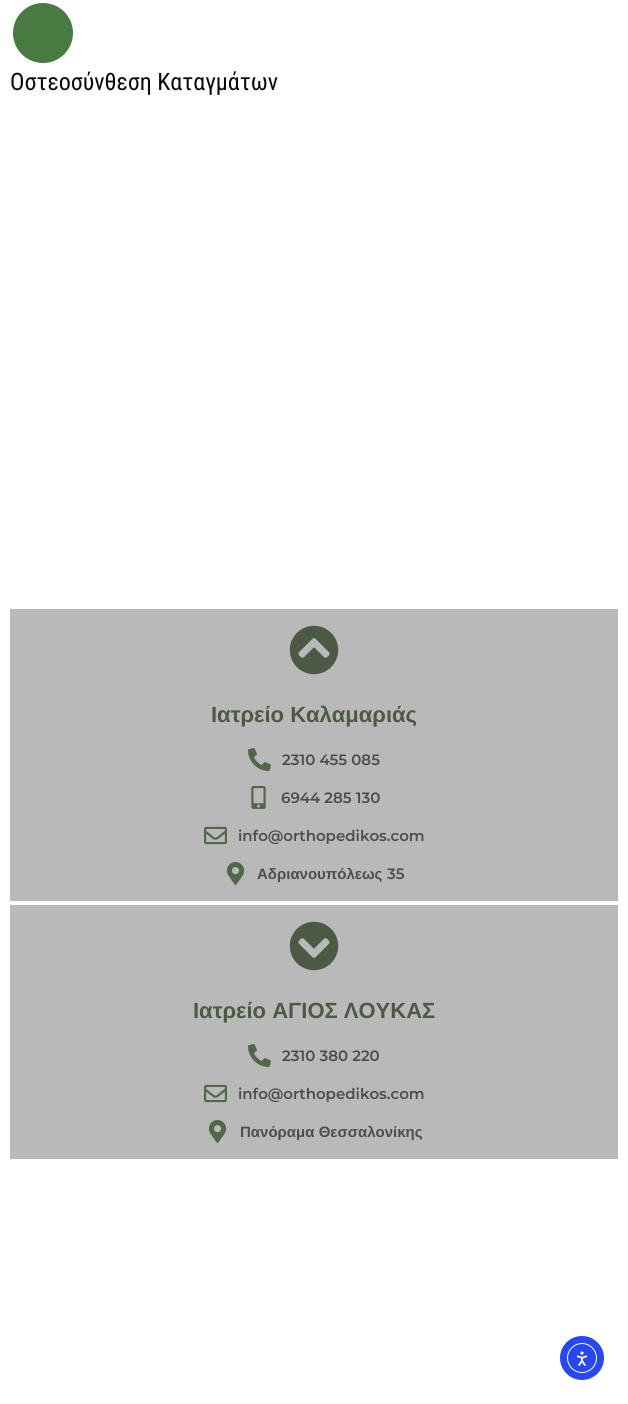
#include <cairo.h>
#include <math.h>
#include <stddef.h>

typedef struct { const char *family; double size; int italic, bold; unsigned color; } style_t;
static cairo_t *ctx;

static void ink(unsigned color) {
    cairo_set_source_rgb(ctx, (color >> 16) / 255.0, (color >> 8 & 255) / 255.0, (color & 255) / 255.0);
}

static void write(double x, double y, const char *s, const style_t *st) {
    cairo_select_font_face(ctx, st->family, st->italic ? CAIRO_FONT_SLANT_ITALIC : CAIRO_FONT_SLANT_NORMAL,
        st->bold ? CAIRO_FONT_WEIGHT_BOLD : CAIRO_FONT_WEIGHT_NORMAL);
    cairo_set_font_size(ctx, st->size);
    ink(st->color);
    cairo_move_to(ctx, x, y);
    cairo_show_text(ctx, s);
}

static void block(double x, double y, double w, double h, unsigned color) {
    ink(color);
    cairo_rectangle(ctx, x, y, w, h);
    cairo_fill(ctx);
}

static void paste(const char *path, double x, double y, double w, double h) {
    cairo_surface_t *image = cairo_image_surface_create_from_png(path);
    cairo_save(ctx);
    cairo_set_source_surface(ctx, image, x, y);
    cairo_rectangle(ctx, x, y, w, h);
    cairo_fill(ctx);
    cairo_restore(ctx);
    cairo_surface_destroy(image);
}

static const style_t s1 = {"Roboto Condensed", 24, 0, 0, 0x0a0a0a};
static const style_t s2 = {"Liberation Sans", 22, 0, 1, 0x4c5a44};
static const style_t s3 = {"Montserrat SemiBold", 15, 0, 0, 0x4d4d4d};
static const style_t s4 = {"Liberation Sans", 15, 0, 1, 0x4d4d4d};

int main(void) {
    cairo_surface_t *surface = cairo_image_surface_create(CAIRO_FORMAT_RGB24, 628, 1404);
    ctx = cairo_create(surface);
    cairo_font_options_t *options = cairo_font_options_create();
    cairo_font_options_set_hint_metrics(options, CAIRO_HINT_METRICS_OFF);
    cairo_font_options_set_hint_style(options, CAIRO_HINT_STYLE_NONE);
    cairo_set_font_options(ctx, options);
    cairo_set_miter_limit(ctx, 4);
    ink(0xffffff);
    cairo_paint(ctx);
    ink(0x487a42);
    cairo_arc(ctx, 43, 33, 30, 0, 2 * M_PI);
    cairo_fill(ctx);
    write(10, 90, "Οστεοσύνθεση Καταγμάτων", &s1);
    block(10, 609, 608, 292, 0xb9b9b9);
    paste("pic1.png", 289, 625, 50, 50);
    write(211, 722, "Ιατρείο Καλαμαριάς", &s2);
    paste("pic2.png", 248, 748, 23, 23);
    write(282, 765, "2310 455 085", &s3);
    paste("pic3.png", 251, 786, 15, 23);
    write(281, 803, "6944 285 130", &s3);
    paste("pic4.png", 204, 826, 23, 19);
    write(238, 841, "info@orthopedikos.com", &s3);
    paste("pic5.png", 226, 862, 19, 23);
    write(257, 879, "Αδριανουπόλεως", &s4);
    write(387, 879, "35", &s3);
    block(10, 905, 608, 254, 0xb9b9b9);
    paste("pic6.png", 289, 921, 50, 50);
    write(193, 1018, "Ιατρείο ΑΓΙΟΣ ΛΟΥΚΑΣ", &s2);
    paste("pic2.png", 248, 1044, 23, 23);
    write(282, 1061, "2310 380 220", &s3);
    paste("pic4.png", 204, 1084, 23, 19);
    write(238, 1099, "info@orthopedikos.com", &s3);
    paste("pic5.png", 208, 1120, 19, 23);
    write(240, 1137, "Πανόραμα Θεσσαλονίκης", &s4);
    ink(0x2847f3);
    cairo_new_path(ctx);
    cairo_arc(ctx, 582, 1358, 22, 0, 2 * M_PI);
    cairo_fill(ctx);
    cairo_arc(ctx, 582, 1358, 14.5, 0, 2 * M_PI);
    ink(0xffffff);
    cairo_set_line_width(ctx, 1);
    cairo_stroke(ctx);
    paste("pic7.png", 576, 1351, 12, 15);
    cairo_surface_write_to_png(surface, "screenshot.png");
    cairo_font_options_destroy(options);
    cairo_destroy(ctx);
    cairo_surface_destroy(surface);
    return 0;
}
